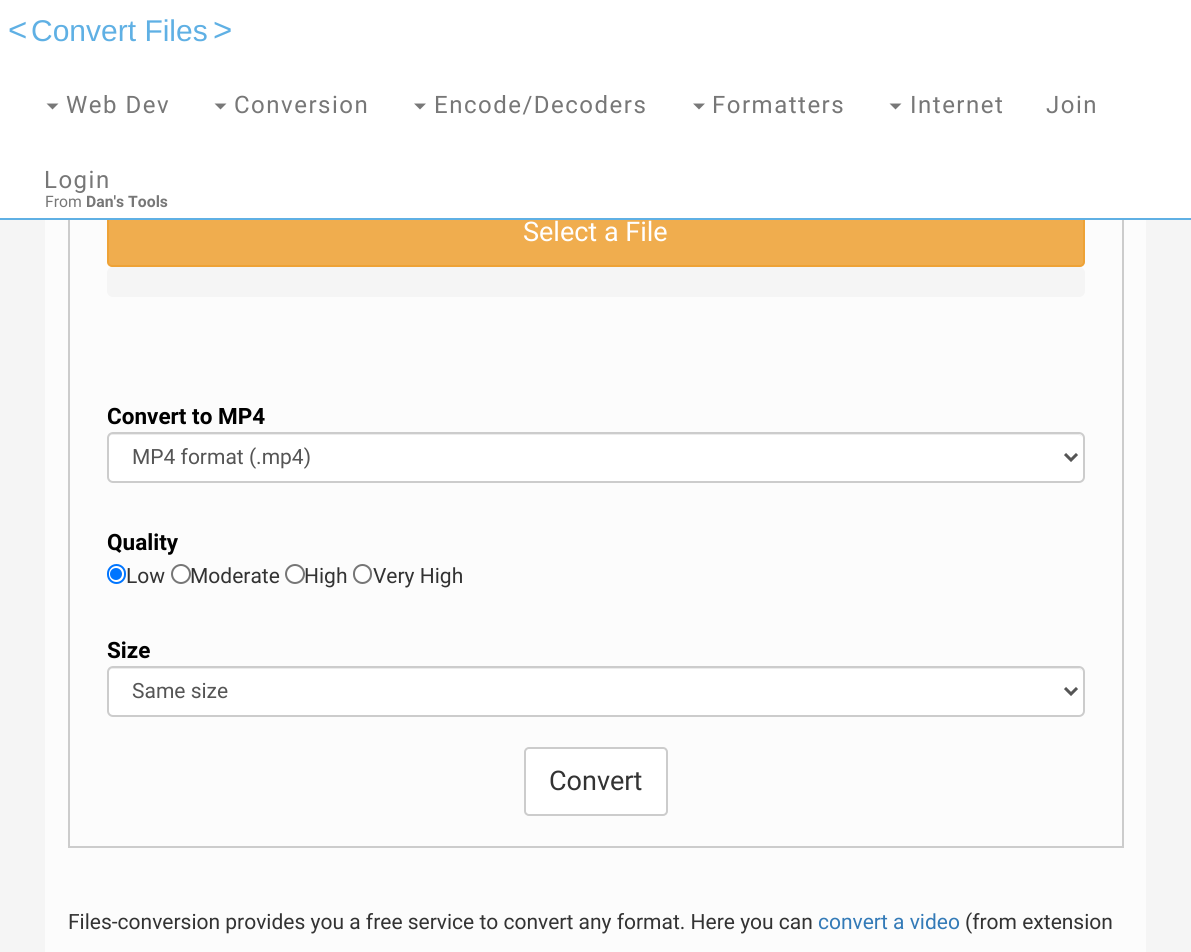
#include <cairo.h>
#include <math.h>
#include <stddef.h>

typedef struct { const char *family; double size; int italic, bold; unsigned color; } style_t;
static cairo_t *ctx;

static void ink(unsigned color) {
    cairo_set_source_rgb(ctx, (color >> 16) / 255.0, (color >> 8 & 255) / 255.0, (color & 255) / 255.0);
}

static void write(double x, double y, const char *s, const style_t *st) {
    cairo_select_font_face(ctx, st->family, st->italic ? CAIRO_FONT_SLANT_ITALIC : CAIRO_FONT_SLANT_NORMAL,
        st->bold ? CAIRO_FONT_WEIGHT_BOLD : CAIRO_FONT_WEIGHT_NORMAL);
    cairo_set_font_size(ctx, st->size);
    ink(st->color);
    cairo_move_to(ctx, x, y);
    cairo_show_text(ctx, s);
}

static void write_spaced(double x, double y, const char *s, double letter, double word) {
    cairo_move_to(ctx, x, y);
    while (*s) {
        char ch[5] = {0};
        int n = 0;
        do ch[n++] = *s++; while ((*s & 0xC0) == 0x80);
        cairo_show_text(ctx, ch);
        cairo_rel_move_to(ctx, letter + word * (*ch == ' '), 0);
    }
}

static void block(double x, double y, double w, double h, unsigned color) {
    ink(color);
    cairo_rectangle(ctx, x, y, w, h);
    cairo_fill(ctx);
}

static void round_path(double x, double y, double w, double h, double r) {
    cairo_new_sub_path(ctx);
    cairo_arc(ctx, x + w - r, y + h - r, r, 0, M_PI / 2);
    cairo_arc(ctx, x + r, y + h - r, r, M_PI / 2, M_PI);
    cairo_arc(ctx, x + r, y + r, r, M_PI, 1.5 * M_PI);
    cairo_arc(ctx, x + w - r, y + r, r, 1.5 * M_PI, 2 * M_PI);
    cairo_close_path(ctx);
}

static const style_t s1 = {"Liberation Sans", 33, 0, 0, 0x5fb0e4};
static const style_t s2 = {"Liberation Sans", 30, 0, 0, 0x5fb0e4};
static const style_t s3 = {"Roboto", 15.75, 0, 0, 0x777777};
static const style_t s4 = {"Roboto", 15.75, 0, 1, 0x777777};
static const style_t s5 = {"Roboto", 27, 0, 0, 0xffffff};
static const style_t s6 = {"Roboto", 22.5, 0, 1, 0x000000};
static const style_t s7 = {"Roboto", 21, 0, 0, 0x555555};
static const style_t s8 = {"Roboto", 21, 0, 0, 0x333333};
static const style_t s9 = {"Roboto", 27, 0, 0, 0x333333};
static const style_t s10 = {"Roboto", 21, 0, 0, 0x337ab7};

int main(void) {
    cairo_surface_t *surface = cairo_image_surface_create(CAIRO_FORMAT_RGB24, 1191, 952);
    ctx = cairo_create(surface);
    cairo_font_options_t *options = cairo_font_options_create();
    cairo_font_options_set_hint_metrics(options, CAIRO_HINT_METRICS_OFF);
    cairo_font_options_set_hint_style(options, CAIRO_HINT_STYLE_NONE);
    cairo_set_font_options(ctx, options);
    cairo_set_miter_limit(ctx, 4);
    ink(0xf5f5f5);
    cairo_paint(ctx);
    block(45, 220, 1101, 732, 0xfcfcfc);
    cairo_rectangle(ctx, 69, 33, 1054, 814);
    ink(0xcccccc);
    cairo_stroke(ctx);
    ink(0xf0ad4e);
    round_path(108, 199, 976, 67, 4);
    cairo_fill_preserve(ctx);
    ink(0xeea236);
    cairo_stroke(ctx);
    block(0, 0, 1191, 218, 0xffffff);
    block(0, 218, 1191, 2, 0x5fb0e4);
    write(8, 41, "<", &s1);
    write(31, 41, "Convert Files", &s2);
    write(213, 41, ">", &s1);
    write(45, 207, "From", &s3);
    write(86, 207, "Dan's Tools", &s4);
    ink(0x787878);
    cairo_new_path(ctx);
    cairo_move_to(ctx, 46.5, 103.5);
    cairo_line_to(ctx, 58.5, 103.5);
    cairo_line_to(ctx, 52.5, 109.5);
    cairo_close_path(ctx);
    cairo_fill(ctx);
    cairo_select_font_face(ctx, "Roboto", CAIRO_FONT_SLANT_NORMAL, CAIRO_FONT_WEIGHT_NORMAL);
    cairo_set_font_size(ctx, 24);
    ink(0x777777);
    write_spaced(66, 113, "Web Dev", 1.5, 0);
    ink(0x787878);
    cairo_new_path(ctx);
    cairo_move_to(ctx, 214.5, 103.5);
    cairo_line_to(ctx, 226.5, 103.5);
    cairo_line_to(ctx, 220.5, 109.5);
    cairo_close_path(ctx);
    cairo_fill(ctx);
    ink(0x777777);
    write_spaced(234, 113, "Conversion", 1.5, 0);
    ink(0x787878);
    cairo_new_path(ctx);
    cairo_move_to(ctx, 414, 103.5);
    cairo_line_to(ctx, 426, 103.5);
    cairo_line_to(ctx, 420, 109.5);
    cairo_close_path(ctx);
    cairo_fill(ctx);
    ink(0x777777);
    write_spaced(434, 113, "Encode/Decoders", 1.5, 0);
    ink(0x787878);
    cairo_new_path(ctx);
    cairo_move_to(ctx, 693, 103.5);
    cairo_line_to(ctx, 705, 103.5);
    cairo_line_to(ctx, 699, 109.5);
    cairo_close_path(ctx);
    cairo_fill(ctx);
    ink(0x777777);
    write_spaced(712, 113, "Formatters", 1.5, 0);
    ink(0x787878);
    cairo_new_path(ctx);
    cairo_move_to(ctx, 889.5, 103.5);
    cairo_line_to(ctx, 901.5, 103.5);
    cairo_line_to(ctx, 895.5, 109.5);
    cairo_close_path(ctx);
    cairo_fill(ctx);
    ink(0x777777);
    write_spaced(910, 113, "Internet", 1.5, 0);
    write_spaced(1046, 113, "Join", 1.5, 0);
    write_spaced(44, 188, "Login", 1.5, 0);
    write(523, 241, "Select a File", &s5);
    ink(0xf5f5f5);
    round_path(107, 267, 978, 30, 6);
    cairo_fill(ctx);
    write(107, 424, "Convert to MP4", &s6);
    ink(0xffffff);
    round_path(107, 432, 978, 51, 6);
    cairo_fill(ctx);
    ink(0xececec);
    cairo_new_path(ctx);
    cairo_move_to(ctx, 112, 435);
    cairo_line_to(ctx, 1078, 435);
    cairo_curve_to(ctx, 1081, 435, 1083, 437, 1083, 440);
    cairo_curve_to(ctx, 1083, 437, 1081, 434, 1078, 434);
    cairo_line_to(ctx, 113, 434);
    cairo_curve_to(ctx, 110, 434, 108, 437, 108, 440);
    cairo_curve_to(ctx, 108, 437, 110, 435, 112, 435);
    cairo_close_path(ctx);
    cairo_fill(ctx);
    round_path(108, 433, 976, 49, 5);
    ink(0xcccccc);
    cairo_stroke(ctx);
    cairo_new_path(ctx);
    cairo_move_to(ctx, 1065, 454);
    cairo_line_to(ctx, 1071, 460);
    cairo_line_to(ctx, 1077, 454);
    ink(0x555555);
    cairo_set_line_width(ctx, 3);
    cairo_stroke(ctx);
    write(132, 464, "MP4 format (.mp4)", &s7);
    write(107, 550, "Quality", &s6);
    ink(0xffffff);
    round_path(108, 565, 17, 18, 8.5);
    cairo_fill_preserve(ctx);
    ink(0x0075ff);
    cairo_set_line_width(ctx, 2);
    cairo_stroke(ctx);
    cairo_arc(ctx, 116, 574, 6, 0, 2 * M_PI);
    cairo_fill(ctx);
    write(126, 583, "Low", &s8);
    ink(0xffffff);
    cairo_new_path(ctx);
    cairo_arc(ctx, 181, 574, 9, 0, 2 * M_PI);
    cairo_fill_preserve(ctx);
    ink(0x767676);
    cairo_stroke(ctx);
    write(190, 583, "Moderate", &s8);
    ink(0xffffff);
    cairo_new_path(ctx);
    cairo_arc(ctx, 295, 574, 9, 0, 2 * M_PI);
    cairo_fill_preserve(ctx);
    ink(0x767676);
    cairo_stroke(ctx);
    write(304, 583, "High", &s8);
    ink(0xffffff);
    round_path(354, 565, 17, 18, 8.5);
    cairo_fill_preserve(ctx);
    ink(0x767676);
    cairo_stroke(ctx);
    write(373, 583, "Very High", &s8);
    write(107, 658, "Size", &s6);
    ink(0xffffff);
    round_path(107, 666, 978, 51, 6);
    cairo_fill(ctx);
    ink(0xececec);
    cairo_new_path(ctx);
    cairo_move_to(ctx, 112, 669);
    cairo_line_to(ctx, 1078, 669);
    cairo_curve_to(ctx, 1081, 669, 1083, 671, 1083, 674);
    cairo_curve_to(ctx, 1083, 671, 1081, 668, 1078, 668);
    cairo_line_to(ctx, 113, 668);
    cairo_curve_to(ctx, 110, 668, 108, 671, 108, 674);
    cairo_curve_to(ctx, 108, 671, 110, 669, 112, 669);
    cairo_close_path(ctx);
    cairo_fill(ctx);
    round_path(108, 667, 976, 49, 5);
    ink(0xcccccc);
    cairo_stroke(ctx);
    cairo_new_path(ctx);
    cairo_move_to(ctx, 1065, 688);
    cairo_line_to(ctx, 1071, 694);
    cairo_line_to(ctx, 1077, 688);
    ink(0x555555);
    cairo_set_line_width(ctx, 3);
    cairo_stroke(ctx);
    write(132, 698, "Same size", &s7);
    ink(0xffffff);
    round_path(525, 748, 142, 67, 4);
    cairo_fill_preserve(ctx);
    ink(0xcccccc);
    cairo_set_line_width(ctx, 2);
    cairo_stroke(ctx);
    write(549, 790, "Convert", &s9);
    write(68, 929, "Files-conversion provides you a free service to convert any format. Here you can", &s8);
    write(818, 929, "convert a video", &s10);
    write(965, 929, "(from extension", &s8);
    cairo_surface_write_to_png(surface, "screenshot.png");
    cairo_font_options_destroy(options);
    cairo_destroy(ctx);
    cairo_surface_destroy(surface);
    return 0;
}
